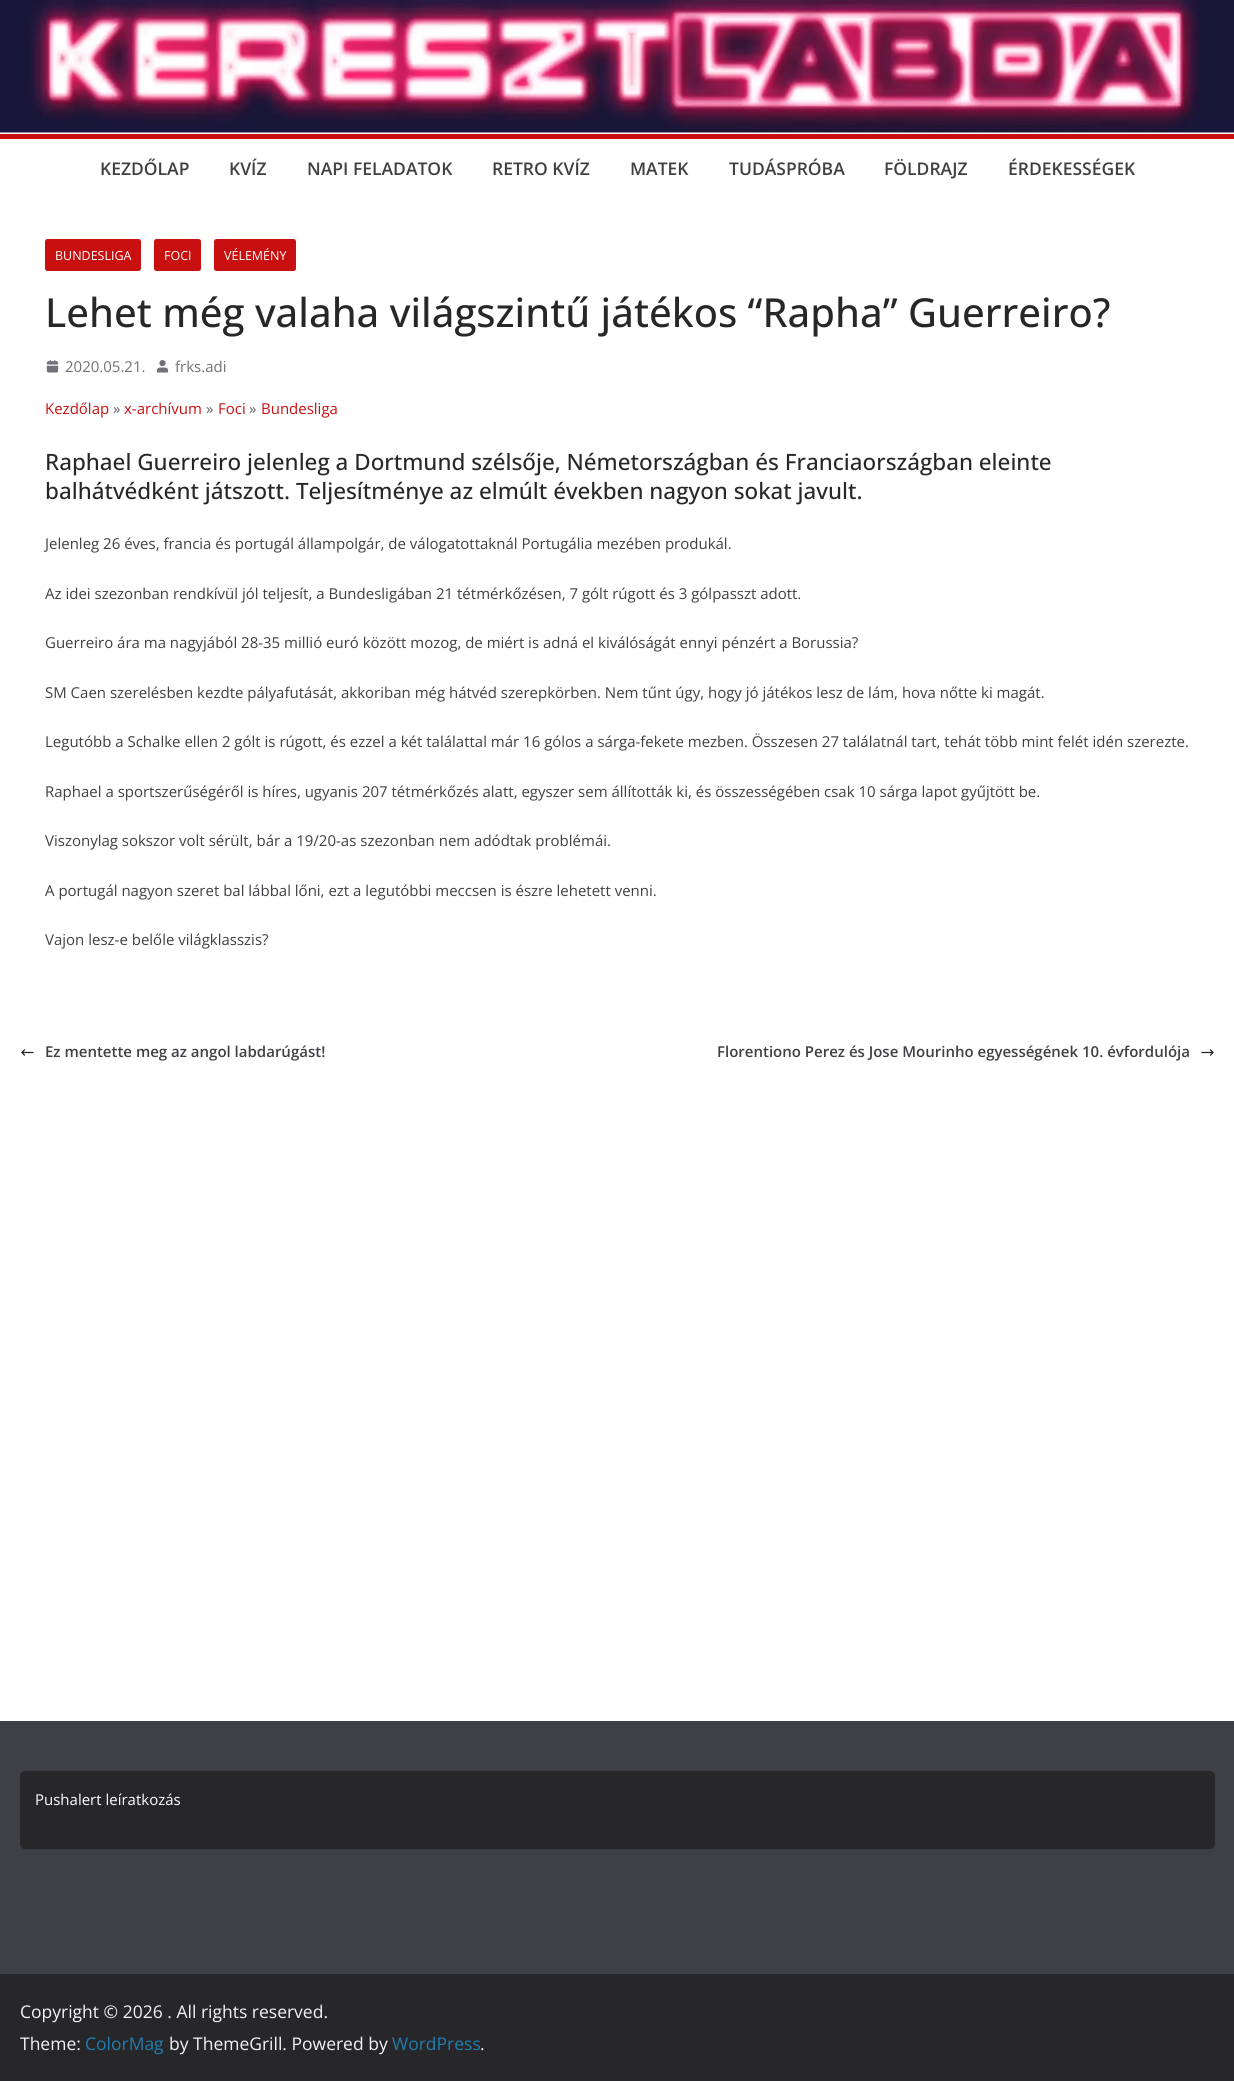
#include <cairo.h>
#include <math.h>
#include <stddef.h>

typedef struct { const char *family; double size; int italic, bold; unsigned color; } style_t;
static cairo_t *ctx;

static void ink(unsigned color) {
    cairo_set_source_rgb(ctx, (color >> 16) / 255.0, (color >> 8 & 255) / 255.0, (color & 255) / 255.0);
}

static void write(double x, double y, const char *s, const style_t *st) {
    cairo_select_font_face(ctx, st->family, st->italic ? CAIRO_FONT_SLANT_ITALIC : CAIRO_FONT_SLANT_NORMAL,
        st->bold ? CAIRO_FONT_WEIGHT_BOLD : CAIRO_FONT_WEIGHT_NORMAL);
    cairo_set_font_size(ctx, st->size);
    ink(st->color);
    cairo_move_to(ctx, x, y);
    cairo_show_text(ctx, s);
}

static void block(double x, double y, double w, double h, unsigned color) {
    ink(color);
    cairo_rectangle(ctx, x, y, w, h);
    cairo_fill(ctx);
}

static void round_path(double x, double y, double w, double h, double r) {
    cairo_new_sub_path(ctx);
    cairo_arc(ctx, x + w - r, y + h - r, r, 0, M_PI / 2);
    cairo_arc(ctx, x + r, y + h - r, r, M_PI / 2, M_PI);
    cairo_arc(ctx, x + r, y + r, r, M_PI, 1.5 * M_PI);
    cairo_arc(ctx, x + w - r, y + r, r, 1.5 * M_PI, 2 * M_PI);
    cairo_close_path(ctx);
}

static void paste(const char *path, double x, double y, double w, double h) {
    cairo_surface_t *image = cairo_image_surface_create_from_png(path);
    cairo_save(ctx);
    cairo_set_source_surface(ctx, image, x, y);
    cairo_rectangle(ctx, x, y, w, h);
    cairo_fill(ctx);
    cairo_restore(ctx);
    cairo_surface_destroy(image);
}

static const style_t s1 = {"Open Sans SemiBold", 17.5, 0, 0, 0x3f3f46};
static const style_t s2 = {"Open Sans", 12.5, 0, 0, 0xffffff};
static const style_t s3 = {"Open Sans Medium", 40, 0, 0, 0x27272a};
static const style_t s4 = {"Open Sans", 15, 0, 0, 0x71717a};
static const style_t s5 = {"Open Sans", 15, 0, 0, 0xc91010};
static const style_t s6 = {"Open Sans", 15, 0, 0, 0x666666};
static const style_t s7 = {"Open Sans Medium", 22.5, 0, 0, 0x27272a};
static const style_t s8 = {"Open Sans", 15, 0, 0, 0x3f3f46};
static const style_t s9 = {"Open Sans SemiBold", 15, 0, 0, 0x3f3f46};
static const style_t s10 = {"Open Sans", 15, 0, 0, 0xffffff};
static const style_t s11 = {"Open Sans", 17.5, 0, 0, 0xf4f4f5};
static const style_t s12 = {"Open Sans", 17.5, 0, 0, 0x207daf};

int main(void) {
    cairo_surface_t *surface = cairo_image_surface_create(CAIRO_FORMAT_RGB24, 1234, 2081);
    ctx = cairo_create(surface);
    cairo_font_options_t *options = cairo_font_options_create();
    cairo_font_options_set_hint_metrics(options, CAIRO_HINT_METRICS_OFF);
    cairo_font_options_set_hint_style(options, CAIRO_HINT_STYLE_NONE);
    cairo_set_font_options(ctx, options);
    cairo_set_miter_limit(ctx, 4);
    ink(0xffffff);
    cairo_paint(ctx);
    paste("pic1.png", 0, 0, 1234, 133);
    block(0, 134, 1234, 5, 0xc91010);
    write(100, 175, "KEZDŐLAP", &s1);
    write(229, 175, "KVÍZ", &s1);
    write(307, 175, "NAPI FELADATOK", &s1);
    write(492, 175, "RETRO KVÍZ", &s1);
    write(630, 175, "MATEK", &s1);
    write(729, 175, "TUDÁSPRÓBA", &s1);
    write(884, 175, "FÖLDRAJZ", &s1);
    write(1008, 175, "ÉRDEKESSÉGEK", &s1);
    ink(0xc91010);
    round_path(45, 239, 96, 32, 2.5);
    cairo_fill(ctx);
    write(55, 260, "BUNDESLIGA", &s2);
    ink(0xc91010);
    round_path(154, 239, 47, 32, 2.5);
    cairo_fill(ctx);
    write(164, 260, "FOCI", &s2);
    ink(0xc91010);
    round_path(214, 239, 82, 32, 2.5);
    cairo_fill(ctx);
    write(224, 260, "VÉLEMÉNY", &s2);
    write(45, 327, "Lehet még valaha világszintű játékos “Rapha” Guerreiro?", &s3);
    paste("pic2.png", 46, 360, 13, 13);
    write(65, 372, "2020.05.21.", &s4);
    paste("pic3.png", 156, 360, 13, 13);
    write(175, 372, "frks.adi", &s4);
    write(45, 414, "Kezdőlap", &s5);
    write(113, 414, "»", &s6);
    write(124, 414, "x-archívum", &s5);
    write(206, 414, "»", &s6);
    write(218, 414, "Foci", &s5);
    write(249, 414, "»", &s6);
    write(261, 414, "Bundesliga", &s5);
    write(45, 470, "Raphael Guerreiro jelenleg a Dortmund szélsője, Németországban és Franciaországban eleinte", &s7);
    write(45, 499, "balhátvédként játszott. Teljesítménye az elmúlt években nagyon sokat javult.", &s7);
    write(45, 549, "Jelenleg 26 éves, francia és portugál állampolgár, de válogatottaknál Portugália mezében produkál.", &s8);
    write(45, 599, "Az idei szezonban rendkívül jól teljesít, a Bundesligában 21 tétmérkőzésen, 7 gólt rúgott és 3 gólpasszt adott.", &s8);
    write(45, 648, "Guerreiro ára ma nagyjából 28-35 millió euró között mozog, de miért is adná el kiválóságát ennyi pénzért a Borussia?", &s8);
    write(45, 698, "SM Caen szerelésben kezdte pályafutását, akkoriban még hátvéd szerepkörben. Nem tűnt úgy, hogy jó játékos lesz de lám, hova nőtte ki magát.", &s8);
    write(45, 747, "Legutóbb a Schalke ellen 2 gólt is rúgott, és ezzel a két találattal már 16 gólos a sárga-fekete mezben. Összesen 27 találatnál tart, tehát több mint felét idén szerezte.", &s8);
    write(45, 797, "Raphael a sportszerűségéről is híres, ugyanis 207 tétmérkőzés alatt, egyszer sem állították ki, és összességében csak 10 sárga lapot gyűjtött be.", &s8);
    write(45, 846, "Viszonylag sokszor volt sérült, bár a 19/20-as szezonban nem adódtak problémái.", &s8);
    write(45, 896, "A portugál nagyon szeret bal lábbal lőni, ezt a legutóbbi meccsen is észre lehetett venni.", &s8);
    write(45, 945, "Vajon lesz-e belőle világklasszis?", &s8);
    paste("pic4.png", 21, 1049, 13, 7);
    write(45, 1057, "Ez mentette meg az angol labdarúgást!", &s9);
    write(717, 1057, "Florentiono Perez és Jose Mourinho egyességének 10. évfordulója", &s9);
    paste("pic5.png", 1201, 1049, 13, 7);
    block(0, 1721, 1234, 253, 0x3f3f46);
    ink(0x27272a);
    round_path(20, 1771, 1195, 78, 5);
    cairo_fill(ctx);
    write(35, 1805, "Pushalert leíratkozás", &s10);
    block(0, 1974, 1234, 107, 0x27272a);
    write(20, 2018, "Copyright © 2026 . All rights reserved.", &s11);
    write(20, 2050, "Theme:", &s11);
    write(85, 2050, "ColorMag", &s12);
    write(169, 2050, "by ThemeGrill. Powered by", &s11);
    write(392, 2050, "WordPress", &s12);
    write(480, 2050, ".", &s11);
    cairo_surface_write_to_png(surface, "screenshot.png");
    cairo_font_options_destroy(options);
    cairo_destroy(ctx);
    cairo_surface_destroy(surface);
    return 0;
}
